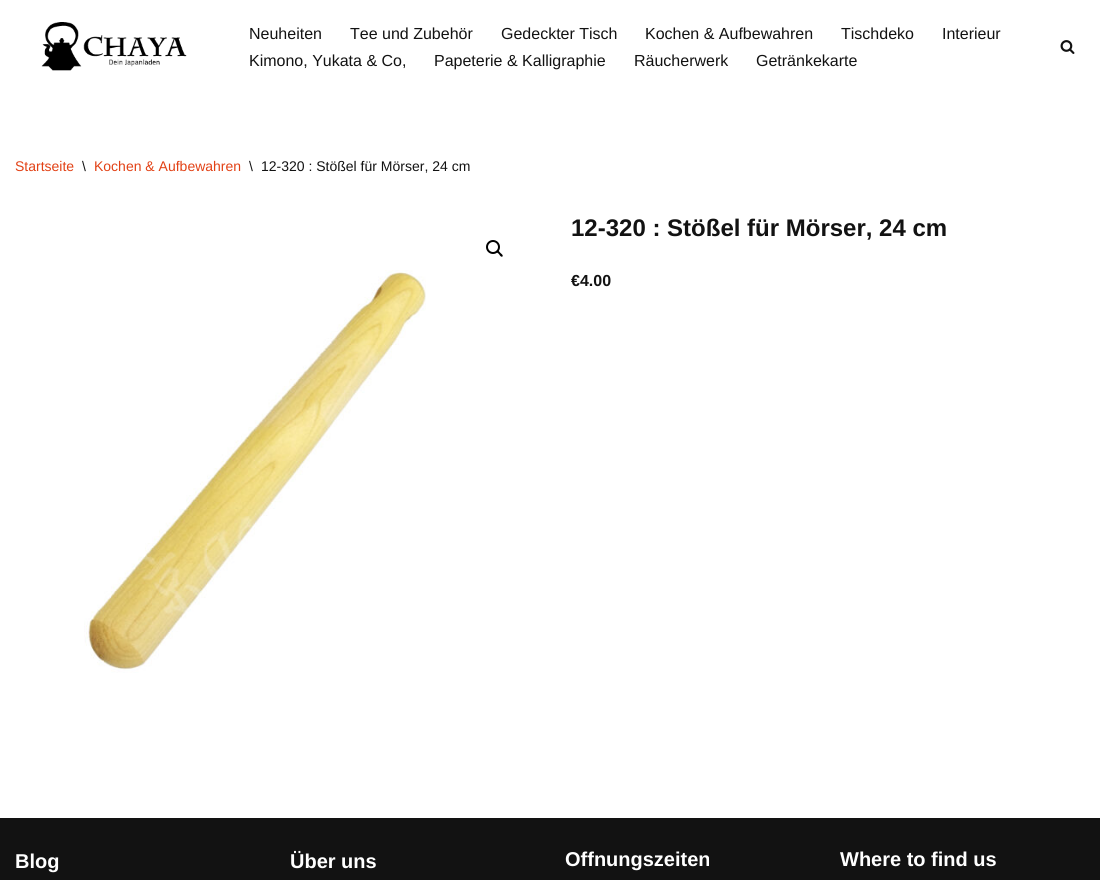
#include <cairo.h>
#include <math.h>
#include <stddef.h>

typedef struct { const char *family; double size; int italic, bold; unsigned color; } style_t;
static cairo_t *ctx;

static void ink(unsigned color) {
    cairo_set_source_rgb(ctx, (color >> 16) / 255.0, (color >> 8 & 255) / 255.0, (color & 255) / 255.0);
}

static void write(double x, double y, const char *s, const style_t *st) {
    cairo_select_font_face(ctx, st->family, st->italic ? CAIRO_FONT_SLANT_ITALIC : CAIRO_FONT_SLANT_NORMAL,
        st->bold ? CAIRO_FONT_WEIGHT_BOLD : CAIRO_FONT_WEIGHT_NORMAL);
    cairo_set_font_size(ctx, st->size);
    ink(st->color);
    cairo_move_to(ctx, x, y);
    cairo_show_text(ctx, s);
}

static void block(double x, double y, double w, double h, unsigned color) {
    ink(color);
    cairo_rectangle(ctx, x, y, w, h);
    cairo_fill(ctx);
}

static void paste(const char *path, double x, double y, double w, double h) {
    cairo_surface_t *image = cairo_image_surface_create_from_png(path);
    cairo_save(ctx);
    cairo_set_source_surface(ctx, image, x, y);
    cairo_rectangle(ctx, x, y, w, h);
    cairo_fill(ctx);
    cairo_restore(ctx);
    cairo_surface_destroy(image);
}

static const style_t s1 = {"Liberation Sans", 16, 0, 0, 0x121212};
static const style_t s2 = {"Liberation Sans", 14, 0, 0, 0xe24115};
static const style_t s3 = {"Liberation Sans", 14, 0, 0, 0x121212};
static const style_t s4 = {"Liberation Sans", 24, 0, 1, 0x121212};
static const style_t s5 = {"Liberation Sans", 16, 0, 1, 0x121212};
static const style_t s6 = {"Liberation Sans", 20, 0, 1, 0xffffff};

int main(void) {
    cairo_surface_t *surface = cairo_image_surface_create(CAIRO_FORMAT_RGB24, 1100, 880);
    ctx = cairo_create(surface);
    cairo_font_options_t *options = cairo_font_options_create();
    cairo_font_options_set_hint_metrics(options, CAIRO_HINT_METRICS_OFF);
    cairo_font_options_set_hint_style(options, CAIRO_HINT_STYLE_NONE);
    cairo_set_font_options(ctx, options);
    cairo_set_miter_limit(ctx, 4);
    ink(0xffffff);
    cairo_paint(ctx);
    paste("pic1.png", 41, 22, 146, 49);
    write(249, 39, "Neuheiten", &s1);
    write(350, 39, "Tee und Zubehör", &s1);
    write(501, 39, "Gedeckter Tisch", &s1);
    write(645, 39, "Kochen & Aufbewahren", &s1);
    write(841, 39, "Tischdeko", &s1);
    write(942, 39, "Interieur", &s1);
    write(249, 66, "Kimono, Yukata & Co,", &s1);
    write(434, 66, "Papeterie & Kalligraphie", &s1);
    write(634, 66, "Räucherwerk", &s1);
    write(756, 66, "Getränkekarte", &s1);
    paste("pic2.png", 1060, 40, 15, 14);
    write(15, 171, "Startseite", &s2);
    write(82, 171, "\\", &s3);
    write(94, 171, "Kochen & Aufbewahren", &s2);
    write(249, 171, "\\", &s3);
    write(261, 171, "12-320 : Stößel für Mörser, 24 cm", &s3);
    cairo_new_path(ctx);
    cairo_arc(ctx, 493, 247, 6, 0, 2 * M_PI);
    ink(0x000000);
    cairo_stroke(ctx);
    cairo_new_path(ctx);
    cairo_move_to(ctx, 497, 250.5);
    cairo_curve_to(ctx, 498, 249.5, 499.5, 252, 500.5, 253);
    cairo_curve_to(ctx, 501, 253.5, 503.5, 255, 502.5, 256.5);
    cairo_curve_to(ctx, 501, 257.5, 499.5, 255, 499, 254);
    cairo_curve_to(ctx, 498.5, 253.5, 495.5, 252, 497, 250.5);
    cairo_close_path(ctx);
    cairo_fill(ctx);
    paste("pic3.png", 84, 270, 342, 403);
    write(571, 236, "12-320 : Stößel für Mörser, 24 cm", &s4);
    write(571, 286, "€4.00", &s5);
    block(0, 818, 1100, 62, 0x121212);
    write(15, 868, "Blog", &s6);
    write(290, 868, "Über uns", &s6);
    write(565, 866, "Offnungszeiten", &s6);
    write(840, 866, "Where to find us", &s6);
    cairo_surface_write_to_png(surface, "screenshot.png");
    cairo_font_options_destroy(options);
    cairo_destroy(ctx);
    cairo_surface_destroy(surface);
    return 0;
}
